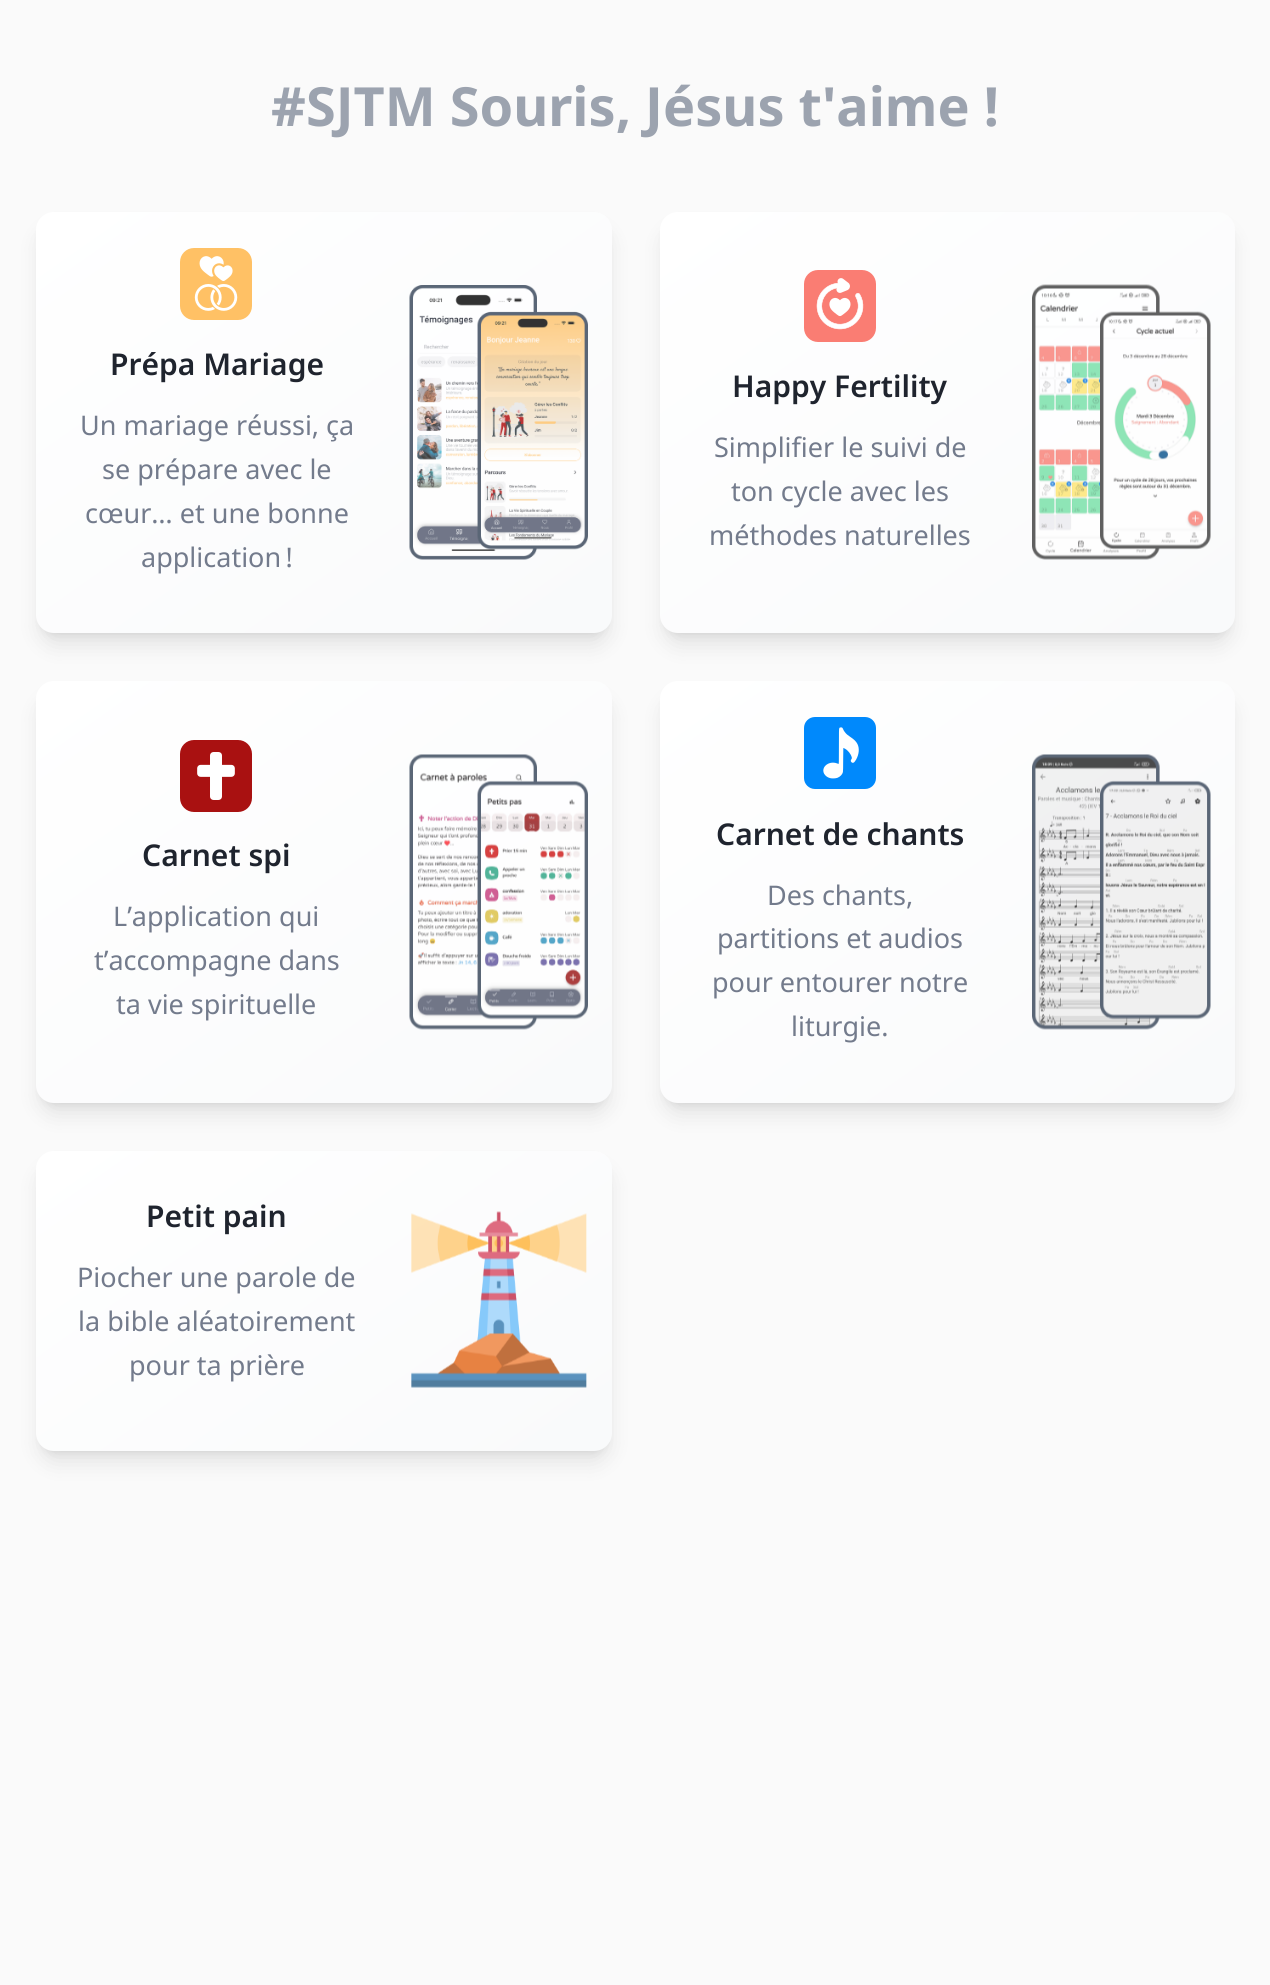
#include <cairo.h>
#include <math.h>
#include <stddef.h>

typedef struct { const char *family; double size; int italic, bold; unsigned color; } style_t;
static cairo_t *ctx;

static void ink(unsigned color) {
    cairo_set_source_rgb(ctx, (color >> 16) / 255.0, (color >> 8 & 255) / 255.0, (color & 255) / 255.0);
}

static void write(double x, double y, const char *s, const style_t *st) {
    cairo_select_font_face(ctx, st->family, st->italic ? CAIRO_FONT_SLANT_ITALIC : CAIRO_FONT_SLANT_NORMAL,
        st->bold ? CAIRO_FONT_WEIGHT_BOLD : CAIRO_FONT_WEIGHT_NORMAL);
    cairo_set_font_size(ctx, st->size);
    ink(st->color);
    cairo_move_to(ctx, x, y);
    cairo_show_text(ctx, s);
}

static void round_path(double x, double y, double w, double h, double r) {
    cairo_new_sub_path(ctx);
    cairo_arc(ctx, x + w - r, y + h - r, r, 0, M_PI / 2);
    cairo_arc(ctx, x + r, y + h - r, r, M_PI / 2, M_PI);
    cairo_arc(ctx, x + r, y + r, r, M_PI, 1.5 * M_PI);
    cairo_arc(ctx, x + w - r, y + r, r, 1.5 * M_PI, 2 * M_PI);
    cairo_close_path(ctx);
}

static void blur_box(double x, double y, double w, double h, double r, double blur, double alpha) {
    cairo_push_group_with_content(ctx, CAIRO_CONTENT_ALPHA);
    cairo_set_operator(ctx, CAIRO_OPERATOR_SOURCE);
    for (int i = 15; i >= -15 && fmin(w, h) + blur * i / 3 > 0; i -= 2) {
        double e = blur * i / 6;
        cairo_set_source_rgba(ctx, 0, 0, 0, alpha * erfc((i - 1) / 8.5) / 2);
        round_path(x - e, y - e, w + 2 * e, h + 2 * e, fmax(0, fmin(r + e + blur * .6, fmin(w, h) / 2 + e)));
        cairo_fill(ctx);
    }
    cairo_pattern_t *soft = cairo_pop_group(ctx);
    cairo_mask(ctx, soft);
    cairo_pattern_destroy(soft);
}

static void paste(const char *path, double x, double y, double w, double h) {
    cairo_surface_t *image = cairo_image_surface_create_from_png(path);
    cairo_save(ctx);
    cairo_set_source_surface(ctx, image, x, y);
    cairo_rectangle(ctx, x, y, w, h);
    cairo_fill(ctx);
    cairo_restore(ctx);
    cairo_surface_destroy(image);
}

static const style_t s1 = {"Noto Sans", 54, 0, 1, 0x9ca3af};
static const style_t s2 = {"Noto Sans SemiBold", 30, 0, 0, 0x1f242e};
static const style_t s3 = {"Noto Sans", 27, 0, 0, 0x737b8c};

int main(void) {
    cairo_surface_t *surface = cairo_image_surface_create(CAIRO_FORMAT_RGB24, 1270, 1985);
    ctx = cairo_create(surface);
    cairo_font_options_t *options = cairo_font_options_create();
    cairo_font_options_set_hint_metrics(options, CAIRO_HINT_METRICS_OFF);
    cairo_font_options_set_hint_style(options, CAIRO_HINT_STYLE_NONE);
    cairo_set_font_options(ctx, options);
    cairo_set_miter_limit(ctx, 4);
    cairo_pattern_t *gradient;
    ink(0xfafafa);
    cairo_paint(ctx);
    write(271, 126, "#SJTM Souris, Jésus t'aime !", &s1);
    ink(0x000000);
    blur_box(42, 224, 564, 409, 12, 4.5, 0.1);
    blur_box(41, 231, 567, 413, 14, 11, 0.1);
    gradient = cairo_pattern_create_linear(130, 146, 518, 699);
    cairo_pattern_add_color_stop_rgba(gradient, 0, 1, 1, 1, 1);
    cairo_pattern_add_color_stop_rgba(gradient, 1, 0.976, 0.98, 0.984, 1);
    cairo_set_source(ctx, gradient);
    cairo_pattern_destroy(gradient);
    round_path(36, 212, 576, 421, 18);
    cairo_fill(ctx);
    paste("pic1.png", 180, 248, 72, 72);
    write(110, 375, "Prépa Mariage", &s2);
    write(80, 435, "Un mariage réussi, ça", &s3);
    write(102, 479, "se prépare avec le", &s3);
    write(85, 523, "cœur… et une bonne", &s3);
    write(141, 567, "application !", &s3);
    paste("pic2.png", 409, 285, 179, 275);
    ink(0x000000);
    blur_box(666, 224, 563, 409, 12, 4.5, 0.1);
    blur_box(665, 231, 565, 413, 14, 11, 0.1);
    gradient = cairo_pattern_create_linear(754, 146, 1141, 699);
    cairo_pattern_add_color_stop_rgba(gradient, 0, 1, 1, 1, 1);
    cairo_pattern_add_color_stop_rgba(gradient, 1, 0.976, 0.98, 0.984, 1);
    cairo_set_source(ctx, gradient);
    cairo_pattern_destroy(gradient);
    round_path(660, 212, 575, 421, 18);
    cairo_fill(ctx);
    paste("pic3.png", 804, 270, 72, 72);
    write(732, 397, "Happy Fertility", &s2);
    write(714, 457, "Simplifier le suivi de", &s3);
    write(731, 501, "ton cycle avec les", &s3);
    write(709, 545, "méthodes naturelles", &s3);
    paste("pic4.png", 1032, 284, 179, 276);
    ink(0x000000);
    blur_box(42, 693, 564, 410, 12, 4.5, 0.1);
    blur_box(41, 701, 567, 412, 14, 11, 0.1);
    gradient = cairo_pattern_create_linear(130, 615, 518, 1168);
    cairo_pattern_add_color_stop_rgba(gradient, 0, 1, 1, 1, 1);
    cairo_pattern_add_color_stop_rgba(gradient, 1, 0.976, 0.98, 0.984, 1);
    cairo_set_source(ctx, gradient);
    cairo_pattern_destroy(gradient);
    round_path(36, 681, 576, 422, 18);
    cairo_fill(ctx);
    paste("pic5.png", 180, 740, 72, 72);
    write(142, 866, "Carnet spi", &s2);
    write(113, 926, "L’application qui", &s3);
    write(94, 970, "t’accompagne dans", &s3);
    write(116, 1014, "ta vie spirituelle", &s3);
    paste("pic6.png", 409, 754, 179, 276);
    ink(0x000000);
    blur_box(666, 693, 563, 410, 12, 4.5, 0.1);
    blur_box(665, 701, 565, 412, 14, 11, 0.1);
    gradient = cairo_pattern_create_linear(754, 615, 1141, 1168);
    cairo_pattern_add_color_stop_rgba(gradient, 0, 1, 1, 1, 1);
    cairo_pattern_add_color_stop_rgba(gradient, 1, 0.976, 0.98, 0.984, 1);
    cairo_set_source(ctx, gradient);
    cairo_pattern_destroy(gradient);
    round_path(660, 681, 575, 422, 18);
    cairo_fill(ctx);
    paste("pic7.png", 804, 717, 72, 72);
    write(716, 845, "Carnet de chants", &s2);
    write(767, 905, "Des chants,", &s3);
    write(717, 948, "partitions et audios", &s3);
    write(712, 992, "pour entourer notre", &s3);
    write(791, 1036, "liturgie.", &s3);
    paste("pic8.png", 1032, 754, 179, 276);
    ink(0x000000);
    blur_box(42, 1163, 564, 288, 12, 4.5, 0.1);
    blur_box(41, 1170, 567, 291, 14, 11, 0.1);
    gradient = cairo_pattern_create_linear(159, 1065, 489, 1536);
    cairo_pattern_add_color_stop_rgba(gradient, 0, 1, 1, 1, 1);
    cairo_pattern_add_color_stop_rgba(gradient, 1, 0.976, 0.98, 0.984, 1);
    cairo_set_source(ctx, gradient);
    cairo_pattern_destroy(gradient);
    round_path(36, 1151, 576, 300, 18);
    cairo_fill(ctx);
    write(146, 1227, "Petit pain", &s2);
    write(77, 1287, "Piocher une parole de", &s3);
    write(78, 1331, "la bible aléatoirement", &s3);
    write(129, 1375, "pour ta prière", &s3);
    paste("pic9.png", 411, 1211, 176, 177);
    cairo_surface_write_to_png(surface, "screenshot.png");
    cairo_font_options_destroy(options);
    cairo_destroy(ctx);
    cairo_surface_destroy(surface);
    return 0;
}
